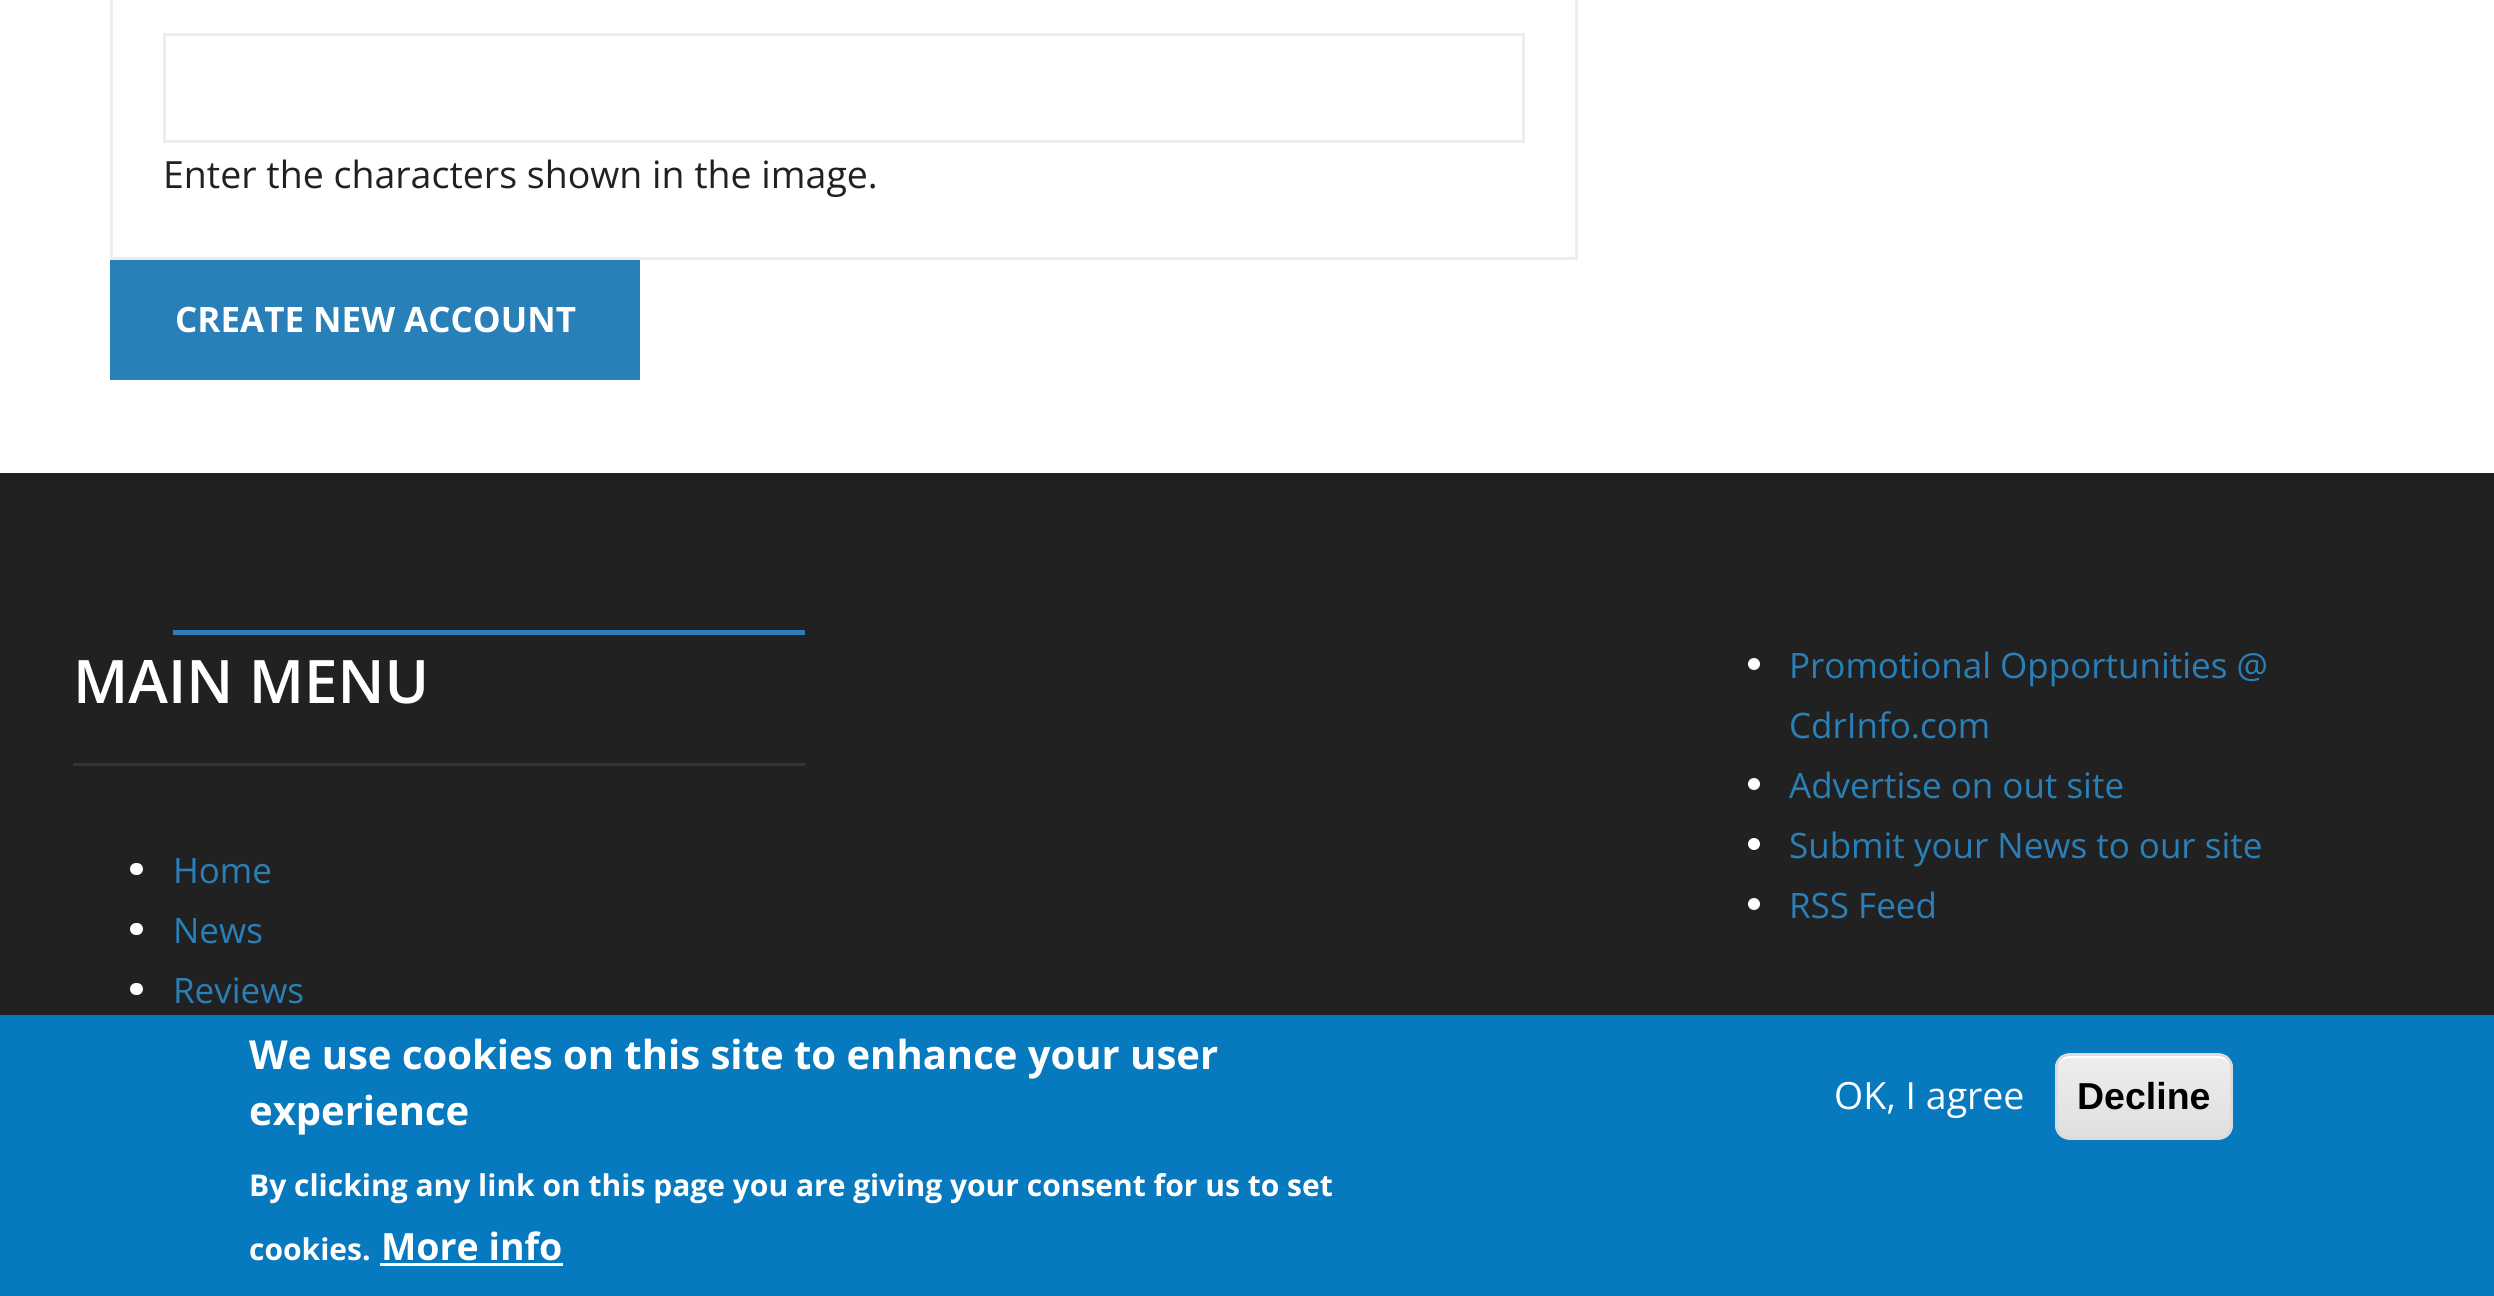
#include <cairo.h>
#include <math.h>
#include <stddef.h>

typedef struct { const char *family; double size; int italic, bold; unsigned color; } style_t;
static cairo_t *ctx;

static void ink(unsigned color) {
    cairo_set_source_rgb(ctx, (color >> 16) / 255.0, (color >> 8 & 255) / 255.0, (color & 255) / 255.0);
}

static void write(double x, double y, const char *s, const style_t *st) {
    cairo_select_font_face(ctx, st->family, st->italic ? CAIRO_FONT_SLANT_ITALIC : CAIRO_FONT_SLANT_NORMAL,
        st->bold ? CAIRO_FONT_WEIGHT_BOLD : CAIRO_FONT_WEIGHT_NORMAL);
    cairo_set_font_size(ctx, st->size);
    ink(st->color);
    cairo_move_to(ctx, x, y);
    cairo_show_text(ctx, s);
}

static void block(double x, double y, double w, double h, unsigned color) {
    ink(color);
    cairo_rectangle(ctx, x, y, w, h);
    cairo_fill(ctx);
}

static void round_path(double x, double y, double w, double h, double r) {
    cairo_new_sub_path(ctx);
    cairo_arc(ctx, x + w - r, y + h - r, r, 0, M_PI / 2);
    cairo_arc(ctx, x + r, y + h - r, r, M_PI / 2, M_PI);
    cairo_arc(ctx, x + r, y + r, r, M_PI, 1.5 * M_PI);
    cairo_arc(ctx, x + w - r, y + r, r, 1.5 * M_PI, 2 * M_PI);
    cairo_close_path(ctx);
}

static const style_t s1 = {"Open Sans", 37.5, 0, 0, 0x212121};
static const style_t s2 = {"Open Sans", 35, 0, 1, 0xffffff};
static const style_t s3 = {"Open Sans SemiBold", 60, 0, 0, 0xffffff};
static const style_t s4 = {"Open Sans", 35, 0, 0, 0x2980b9};
static const style_t s5 = {"Open Sans", 40, 0, 1, 0xffffff};
static const style_t s6 = {"Open Sans", 30, 0, 1, 0xffffff};
static const style_t s7 = {"Open Sans", 37.5, 0, 1, 0xffffff};
static const style_t s8 = {"Open Sans", 37.5, 0, 0, 0xffffff};
static const style_t s9 = {"Liberation Sans", 37.5, 0, 1, 0x000000};

int main(void) {
    cairo_surface_t *surface = cairo_image_surface_create(CAIRO_FORMAT_RGB24, 2494, 1296);
    ctx = cairo_create(surface);
    cairo_font_options_t *options = cairo_font_options_create();
    cairo_font_options_set_hint_metrics(options, CAIRO_HINT_METRICS_OFF);
    cairo_font_options_set_hint_style(options, CAIRO_HINT_STYLE_NONE);
    cairo_set_font_options(ctx, options);
    cairo_set_miter_limit(ctx, 4);
    cairo_pattern_t *gradient;
    ink(0xffffff);
    cairo_paint(ctx);
    cairo_rectangle(ctx, 111.5, -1.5, 1465, 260);
    ink(0xededed);
    cairo_set_line_width(ctx, 3);
    cairo_stroke(ctx);
    cairo_rectangle(ctx, 164.5, 34.5, 1359, 107);
    cairo_stroke(ctx);
    write(163, 188, "Enter the characters shown in the image.", &s1);
    block(110, 260, 530, 120, 0x2980b9);
    write(175, 332, "CREATE NEW ACCOUNT", &s2);
    block(0, 473, 2494, 542, 0x212121);
    block(73, 763, 732, 3, 0x333333);
    write(73, 703, "MAIN MENU", &s3);
    block(173, 630, 632, 5, 0x2980b9);
    ink(0xffffff);
    round_path(130, 863, 13, 12, 6);
    cairo_fill(ctx);
    write(173, 883, "Home", &s4);
    ink(0xffffff);
    round_path(130, 923, 13, 12, 6);
    cairo_fill(ctx);
    write(173, 943, "News", &s4);
    ink(0xffffff);
    round_path(130, 983, 13, 12, 6);
    cairo_fill(ctx);
    write(173, 1003, "Reviews", &s4);
    ink(0xffffff);
    cairo_new_path(ctx);
    cairo_arc(ctx, 1754, 664, 6, 0, 2 * M_PI);
    cairo_fill(ctx);
    write(1789, 678, "Promotional Opportunities @", &s4);
    write(1789, 738, "CdrInfo.com", &s4);
    ink(0xffffff);
    cairo_new_path(ctx);
    cairo_arc(ctx, 1754, 784, 6, 0, 2 * M_PI);
    cairo_fill(ctx);
    write(1789, 798, "Advertise on out site", &s4);
    ink(0xffffff);
    cairo_new_path(ctx);
    cairo_arc(ctx, 1754, 844, 6, 0, 2 * M_PI);
    cairo_fill(ctx);
    write(1789, 858, "Submit your News to our site", &s4);
    ink(0xffffff);
    cairo_new_path(ctx);
    cairo_arc(ctx, 1754, 904, 6, 0, 2 * M_PI);
    cairo_fill(ctx);
    write(1789, 918, "RSS Feed", &s4);
    block(0, 1015, 2494, 281, 0x0779bf);
    write(249, 1069, "We use cookies on this site to enhance your user", &s5);
    write(249, 1125, "experience", &s5);
    write(249, 1196, "By clicking any link on this page you are giving your consent for us to set", &s6);
    write(249, 1260, "cookies.", &s6);
    write(381, 1260, "More info", &s7);
    block(380, 1263, 183, 3, 0xffffff);
    write(1834, 1109, "OK, I agree", &s8);
    cairo_save(ctx);
    round_path(2055, 1053, 178, 87, 15);
    cairo_clip(ctx);
    gradient = cairo_pattern_create_linear(2144, 1055, 2144, 1138);
    cairo_pattern_add_color_stop_rgba(gradient, 0.05, 0.929, 0.929, 0.929, 1);
    cairo_pattern_add_color_stop_rgba(gradient, 1, 0.875, 0.875, 0.875, 1);
    cairo_set_source(ctx, gradient);
    cairo_pattern_destroy(gradient);
    cairo_rectangle(ctx, 2055, 1055, 178, 83);
    cairo_fill(ctx);
    cairo_restore(ctx);
    cairo_new_path(ctx);
    cairo_move_to(ctx, 2070, 1058);
    cairo_line_to(ctx, 2218, 1058);
    cairo_curve_to(ctx, 2224, 1058, 2230, 1063, 2230, 1070);
    cairo_curve_to(ctx, 2230, 1049, 2207, 1055, 2193, 1055);
    cairo_line_to(ctx, 2095, 1055);
    cairo_curve_to(ctx, 2081, 1055, 2058, 1049, 2058, 1070);
    cairo_curve_to(ctx, 2058, 1063, 2063, 1058, 2070, 1058);
    cairo_close_path(ctx);
    cairo_fill(ctx);
    round_path(2056.5, 1054.5, 175, 84, 13.5);
    ink(0xdcdcdc);
    cairo_stroke(ctx);
    write(2077, 1109, "Decline", &s9);
    cairo_surface_write_to_png(surface, "screenshot.png");
    cairo_font_options_destroy(options);
    cairo_destroy(ctx);
    cairo_surface_destroy(surface);
    return 0;
}
